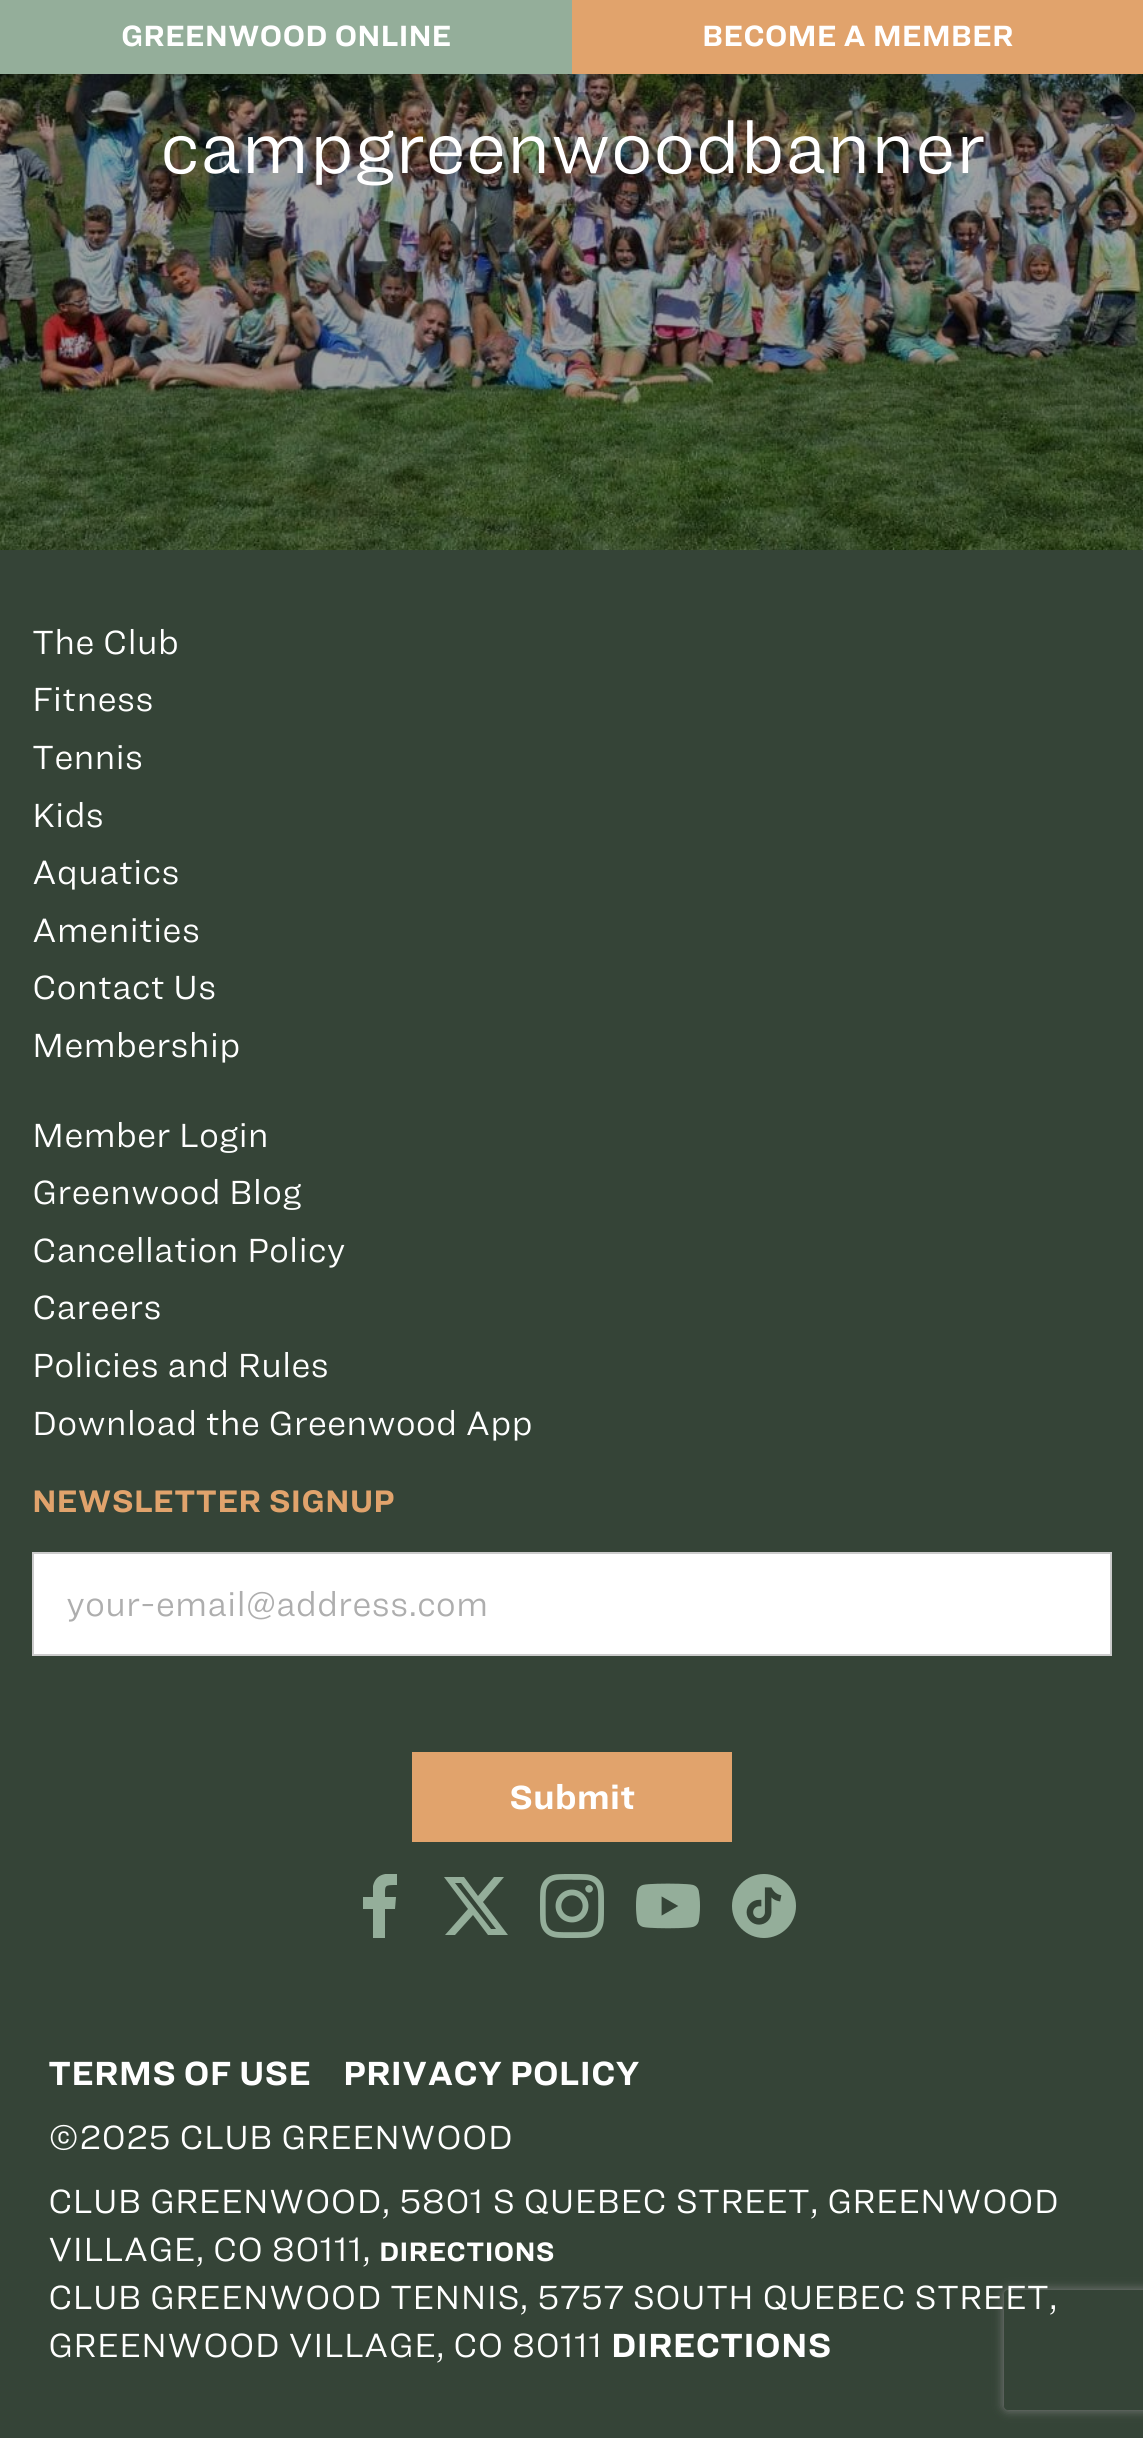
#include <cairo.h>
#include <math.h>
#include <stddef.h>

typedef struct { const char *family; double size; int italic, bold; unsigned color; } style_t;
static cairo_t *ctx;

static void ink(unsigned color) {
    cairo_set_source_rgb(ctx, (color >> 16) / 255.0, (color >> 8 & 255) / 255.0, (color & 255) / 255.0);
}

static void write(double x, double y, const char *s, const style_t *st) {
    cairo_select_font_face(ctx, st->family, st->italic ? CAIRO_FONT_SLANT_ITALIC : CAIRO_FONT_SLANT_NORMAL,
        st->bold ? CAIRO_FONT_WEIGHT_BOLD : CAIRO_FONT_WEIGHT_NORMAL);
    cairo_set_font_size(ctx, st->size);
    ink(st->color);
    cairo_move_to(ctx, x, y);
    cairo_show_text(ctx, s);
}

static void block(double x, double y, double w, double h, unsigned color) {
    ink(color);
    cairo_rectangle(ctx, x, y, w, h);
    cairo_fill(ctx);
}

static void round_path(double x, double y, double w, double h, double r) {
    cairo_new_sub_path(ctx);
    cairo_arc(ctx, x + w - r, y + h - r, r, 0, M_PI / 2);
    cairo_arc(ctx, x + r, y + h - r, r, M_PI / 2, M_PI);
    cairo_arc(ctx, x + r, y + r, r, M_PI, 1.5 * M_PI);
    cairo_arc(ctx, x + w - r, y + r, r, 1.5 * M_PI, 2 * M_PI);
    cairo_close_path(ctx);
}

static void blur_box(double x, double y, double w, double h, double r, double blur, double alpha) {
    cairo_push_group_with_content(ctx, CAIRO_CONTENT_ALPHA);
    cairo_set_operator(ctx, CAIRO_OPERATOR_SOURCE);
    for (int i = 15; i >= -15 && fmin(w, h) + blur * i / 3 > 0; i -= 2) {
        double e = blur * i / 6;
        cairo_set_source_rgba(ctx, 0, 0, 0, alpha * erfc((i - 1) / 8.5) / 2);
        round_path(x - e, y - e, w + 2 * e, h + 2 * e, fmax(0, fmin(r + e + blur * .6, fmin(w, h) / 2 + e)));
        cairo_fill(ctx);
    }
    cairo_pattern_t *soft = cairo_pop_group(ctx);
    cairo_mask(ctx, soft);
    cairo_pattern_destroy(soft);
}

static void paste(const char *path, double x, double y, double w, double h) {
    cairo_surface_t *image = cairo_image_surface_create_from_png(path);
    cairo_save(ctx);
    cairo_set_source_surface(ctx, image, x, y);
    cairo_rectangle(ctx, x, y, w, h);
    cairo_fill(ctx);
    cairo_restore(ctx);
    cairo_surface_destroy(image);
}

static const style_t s1 = {"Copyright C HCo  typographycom", 28, 0, 0, 0xffffff};
static const style_t s2 = {"Copyright C HCo  typographycom Light", 67.5, 0, 0, 0xffffff};
static const style_t s3 = {"Copyright C HCo  typographycom Light", 32, 0, 0, 0xffffff};
static const style_t s4 = {"Copyright C HCo  typographycom", 29.75, 0, 0, 0xe1a36c};
static const style_t s5 = {"Copyright C HCo  typographycom Light", 32, 0, 0, 0xaeaeae};
static const style_t s6 = {"Copyright C HCo  typographycom", 32, 0, 0, 0xffffff};
static const style_t s7 = {"Copyright C HCo  typographycom", 25.5, 0, 0, 0xffffff};

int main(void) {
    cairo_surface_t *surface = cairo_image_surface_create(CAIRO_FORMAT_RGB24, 1143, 2438);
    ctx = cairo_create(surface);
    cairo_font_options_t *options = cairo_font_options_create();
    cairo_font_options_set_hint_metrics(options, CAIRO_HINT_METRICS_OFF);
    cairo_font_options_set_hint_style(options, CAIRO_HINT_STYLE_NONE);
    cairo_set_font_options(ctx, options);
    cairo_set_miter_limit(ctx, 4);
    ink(0xffffff);
    cairo_paint(ctx);
    block(0, 0, 572, 74, 0x94ae9a);
    write(121, 46, "GREENWOOD ONLINE", &s1);
    block(572, 0, 571, 74, 0xe1a36c);
    write(702, 46, "BECOME A MEMBER", &s1);
    paste("pic1.png", 0, 74, 1143, 476);
    write(160, 173, "campgreenwoodbanner", &s2);
    block(0, 550, 1143, 1888, 0x354437);
    write(32, 654, "The Club", &s3);
    write(32, 711, "Fitness", &s3);
    write(32, 769, "Tennis", &s3);
    write(32, 827, "Kids", &s3);
    write(32, 884, "Aquatics", &s3);
    write(32, 942, "Amenities", &s3);
    write(32, 999, "Contact Us", &s3);
    write(32, 1057, "Membership", &s3);
    write(32, 1147, "Member Login", &s3);
    write(32, 1204, "Greenwood Blog", &s3);
    write(32, 1262, "Cancellation Policy", &s3);
    write(32, 1319, "Careers", &s3);
    write(32, 1377, "Policies and Rules", &s3);
    write(32, 1435, "Download the Greenwood App", &s3);
    write(32, 1512, "NEWSLETTER SIGNUP", &s4);
    ink(0xffffff);
    cairo_rectangle(ctx, 33, 1553, 1078, 102);
    cairo_fill_preserve(ctx);
    ink(0xcccccc);
    cairo_stroke(ctx);
    write(66, 1616, "your-email@address.com", &s5);
    block(412, 1752, 320, 90, 0xe1a36c);
    write(509, 1809, "Submit", &s6);
    cairo_save(ctx);
    cairo_set_fill_rule(ctx, CAIRO_FILL_RULE_EVEN_ODD);
    cairo_new_path(ctx);
    cairo_move_to(ctx, 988, 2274);
    cairo_line_to(ctx, 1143, 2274);
    cairo_line_to(ctx, 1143, 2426);
    cairo_line_to(ctx, 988, 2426);
    cairo_close_path(ctx);
    cairo_move_to(ctx, 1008, 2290);
    cairo_line_to(ctx, 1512, 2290);
    cairo_curve_to(ctx, 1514, 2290, 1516, 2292, 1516, 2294);
    cairo_line_to(ctx, 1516, 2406);
    cairo_curve_to(ctx, 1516, 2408, 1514, 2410, 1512, 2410);
    cairo_line_to(ctx, 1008, 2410);
    cairo_curve_to(ctx, 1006, 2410, 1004, 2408, 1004, 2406);
    cairo_line_to(ctx, 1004, 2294);
    cairo_curve_to(ctx, 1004, 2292, 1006, 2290, 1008, 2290);
    cairo_close_path(ctx);
    cairo_clip(ctx);
    ink(0x808080);
    blur_box(1004, 2290, 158, 120, 4, 5, 1);
    cairo_restore(ctx);
    cairo_save(ctx);
    cairo_rectangle(ctx, 348, 1874, 64, 64);
    cairo_clip(ctx);
    ink(0x94ae9a);
    cairo_new_path(ctx);
    cairo_move_to(ctx, 395, 1909);
    cairo_line_to(ctx, 396, 1897);
    cairo_line_to(ctx, 385, 1897);
    cairo_curve_to(ctx, 385, 1885, 384, 1885, 397, 1885);
    cairo_line_to(ctx, 397, 1874);
    cairo_curve_to(ctx, 387, 1873, 376, 1873, 373, 1886);
    cairo_line_to(ctx, 373, 1897);
    cairo_line_to(ctx, 363, 1897);
    cairo_line_to(ctx, 363, 1909);
    cairo_line_to(ctx, 373, 1909);
    cairo_line_to(ctx, 373, 1938);
    cairo_line_to(ctx, 385, 1938);
    cairo_line_to(ctx, 385, 1909);
    cairo_close_path(ctx);
    cairo_fill(ctx);
    cairo_restore(ctx);
    ink(0x94ae9a);
    cairo_new_path(ctx);
    cairo_move_to(ctx, 494, 1877);
    cairo_line_to(ctx, 504, 1877);
    cairo_line_to(ctx, 483, 1902);
    cairo_line_to(ctx, 508, 1935);
    cairo_line_to(ctx, 488, 1935);
    cairo_line_to(ctx, 473, 1915);
    cairo_line_to(ctx, 455, 1935);
    cairo_line_to(ctx, 445, 1935);
    cairo_line_to(ctx, 468, 1909);
    cairo_line_to(ctx, 444, 1877);
    cairo_line_to(ctx, 464, 1877);
    cairo_line_to(ctx, 478, 1896);
    cairo_close_path(ctx);
    cairo_move_to(ctx, 491, 1929);
    cairo_line_to(ctx, 496, 1929);
    cairo_line_to(ctx, 461, 1883);
    cairo_line_to(ctx, 455, 1883);
    cairo_close_path(ctx);
    cairo_fill(ctx);
    paste("pic2.png", 540, 1874, 64, 64);
    paste("pic3.png", 636, 1883, 64, 46);
    paste("pic4.png", 732, 1874, 64, 64);
    write(48, 2085, "TERMS OF USE", &s6);
    write(343, 2085, "PRIVACY POLICY", &s6);
    write(48, 2149, "©2025 CLUB GREENWOOD", &s3);
    write(48, 2213, "CLUB GREENWOOD, 5801 S QUEBEC STREET, GREENWOOD", &s3);
    write(48, 2261, "VILLAGE, CO 80111,", &s3);
    write(379, 2261, "DIRECTIONS", &s7);
    write(48, 2309, "CLUB GREENWOOD TENNIS, 5757 SOUTH QUEBEC STREET,", &s3);
    write(48, 2357, "GREENWOOD VILLAGE, CO 80111", &s3);
    write(611, 2357, "DIRECTIONS", &s6);
    cairo_surface_write_to_png(surface, "screenshot.png");
    cairo_font_options_destroy(options);
    cairo_destroy(ctx);
    cairo_surface_destroy(surface);
    return 0;
}
